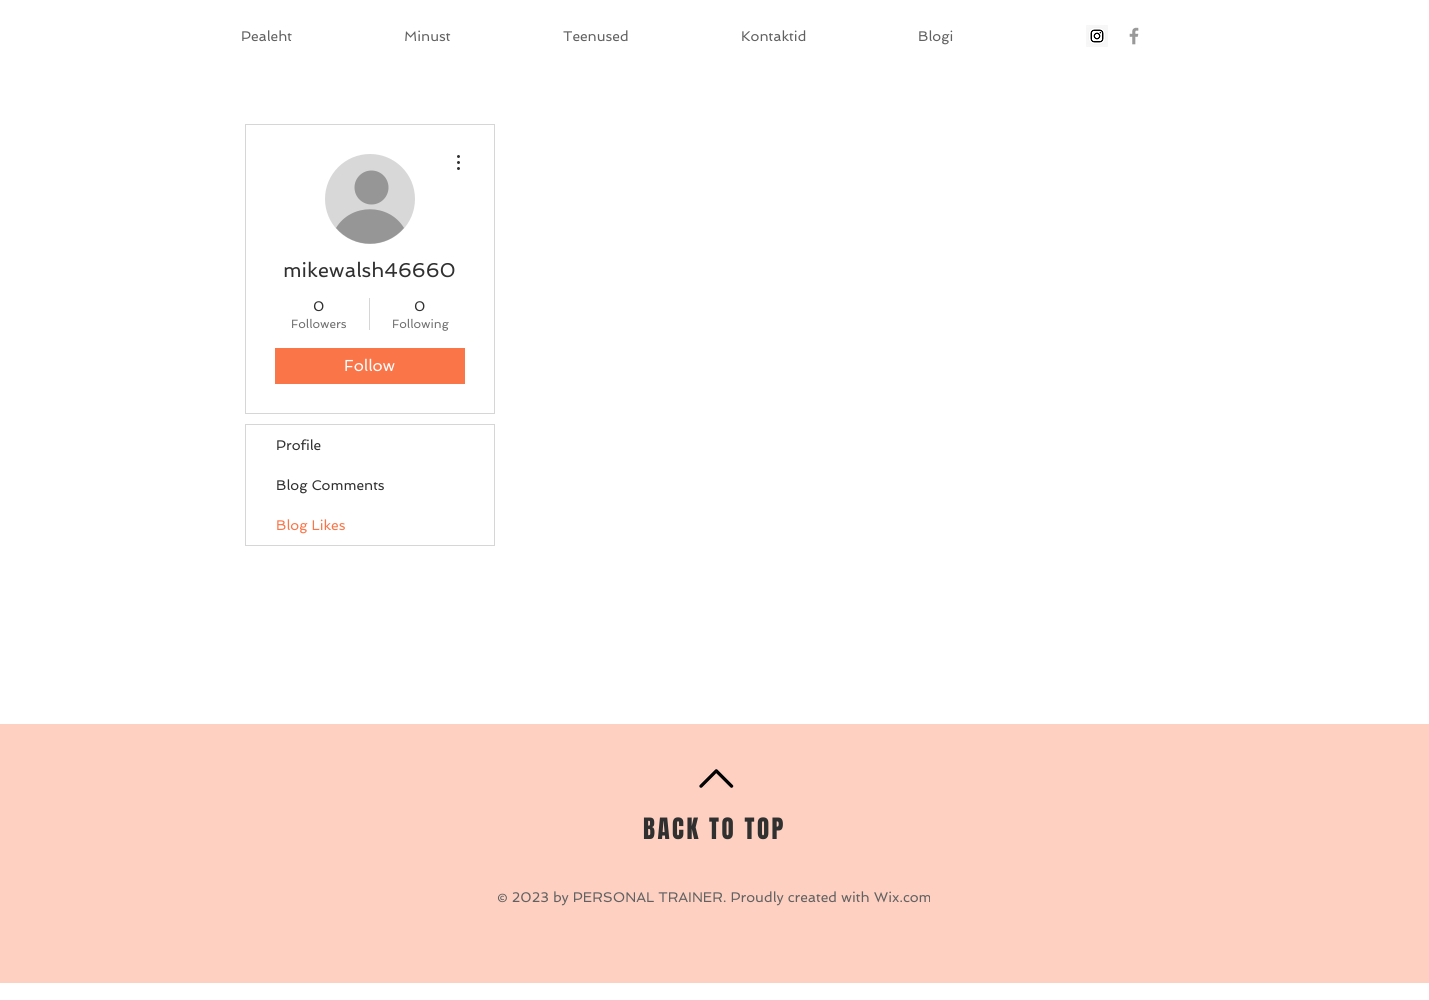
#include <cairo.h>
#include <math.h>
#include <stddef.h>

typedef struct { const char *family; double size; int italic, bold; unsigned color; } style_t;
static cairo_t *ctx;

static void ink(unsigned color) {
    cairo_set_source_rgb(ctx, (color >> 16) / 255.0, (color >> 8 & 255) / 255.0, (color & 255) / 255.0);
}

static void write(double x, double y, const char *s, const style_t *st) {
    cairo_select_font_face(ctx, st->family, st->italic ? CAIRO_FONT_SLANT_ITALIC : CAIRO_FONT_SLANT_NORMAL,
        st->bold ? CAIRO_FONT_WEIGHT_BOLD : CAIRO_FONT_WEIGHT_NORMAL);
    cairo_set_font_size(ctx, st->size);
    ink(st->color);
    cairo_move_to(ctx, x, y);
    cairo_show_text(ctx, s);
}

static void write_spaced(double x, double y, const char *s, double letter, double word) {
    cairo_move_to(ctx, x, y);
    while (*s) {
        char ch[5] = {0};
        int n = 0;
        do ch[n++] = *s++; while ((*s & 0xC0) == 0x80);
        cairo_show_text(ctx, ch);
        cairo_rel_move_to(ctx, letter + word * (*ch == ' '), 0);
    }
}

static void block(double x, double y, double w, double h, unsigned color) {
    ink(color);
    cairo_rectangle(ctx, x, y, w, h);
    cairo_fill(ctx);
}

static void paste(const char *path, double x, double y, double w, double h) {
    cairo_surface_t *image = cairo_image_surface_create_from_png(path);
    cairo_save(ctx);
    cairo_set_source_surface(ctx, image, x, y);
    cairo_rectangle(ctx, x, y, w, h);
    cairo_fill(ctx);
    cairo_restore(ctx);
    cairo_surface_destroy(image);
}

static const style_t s1 = {"Spinnaker", 14, 0, 0, 0x616161};
static const style_t s2 = {"Spinnaker", 20, 0, 0, 0x303030};
static const style_t s3 = {"Spinnaker", 14, 0, 0, 0x303030};
static const style_t s4 = {"Spinnaker", 12, 0, 0, 0x6e6e6e};
static const style_t s5 = {"Spinnaker", 16, 0, 0, 0xffffff};
static const style_t s6 = {"Spinnaker", 14, 0, 0, 0xfa7548};

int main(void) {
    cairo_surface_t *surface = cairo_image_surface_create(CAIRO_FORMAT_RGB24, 1429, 1000);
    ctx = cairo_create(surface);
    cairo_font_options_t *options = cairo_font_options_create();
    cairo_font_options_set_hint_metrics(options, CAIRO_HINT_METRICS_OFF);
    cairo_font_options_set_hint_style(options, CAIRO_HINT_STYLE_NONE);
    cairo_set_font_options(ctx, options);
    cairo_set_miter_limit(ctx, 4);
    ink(0xffffff);
    cairo_paint(ctx);
    write(241, 41, "Pealeht", &s1);
    write(404, 41, "Minust", &s1);
    write(563, 41, "Teenused", &s1);
    write(741, 41, "Kontaktid", &s1);
    write(918, 41, "Blogi", &s1);
    paste("pic1.png", 1086, 25, 22, 22);
    paste("pic2.png", 1129, 27, 10, 18);
    cairo_rectangle(ctx, 245.5, 124.5, 249, 289);
    ink(0xd6d6d6);
    cairo_set_line_width(ctx, 1);
    cairo_stroke(ctx);
    ink(0xd8d8d8);
    cairo_arc(ctx, 370, 199, 45, 0, 2 * M_PI);
    cairo_fill(ctx);
    ink(0x969696);
    cairo_arc(ctx, 371.5, 187.5, 17, 0, 2 * M_PI);
    cairo_fill(ctx);
    cairo_new_path(ctx);
    cairo_move_to(ctx, 404, 228);
    cairo_curve_to(ctx, 386, 249, 354, 249, 336, 228);
    cairo_curve_to(ctx, 351, 203, 389, 203, 404, 228);
    cairo_close_path(ctx);
    cairo_fill(ctx);
    paste("pic3.png", 457, 155, 3, 15);
    write(283, 277, "mikewalsh46660", &s2);
    write(313, 311, "0", &s3);
    write(291, 328, "Followers", &s4);
    block(369, 298, 1, 32, 0xd6d6d6);
    write(414, 311, "0", &s3);
    write(392, 328, "Following", &s4);
    block(275, 348, 190, 36, 0xfa7548);
    write(344, 371, "Follow", &s5);
    cairo_rectangle(ctx, 245.5, 424.5, 249, 121);
    ink(0xd6d6d6);
    cairo_stroke(ctx);
    write(276, 450, "Profile", &s3);
    write(276, 490, "Blog Comments", &s3);
    write(276, 530, "Blog Likes", &s6);
    block(0, 724, 1429, 259, 0xfdd0c1);
    paste("pic4.png", 699, 769, 35, 19);
    cairo_select_font_face(ctx, "Anton", CAIRO_FONT_SLANT_NORMAL, CAIRO_FONT_WEIGHT_NORMAL);
    cairo_set_font_size(ctx, 25);
    ink(0x303030);
    write_spaced(643, 839, "BACK TO TOP", 2.5, 0);
    write(497, 902, "© 2023 by PERSONAL TRAINER. Proudly created with Wix.com", &s1);
    cairo_surface_write_to_png(surface, "screenshot.png");
    cairo_font_options_destroy(options);
    cairo_destroy(ctx);
    cairo_surface_destroy(surface);
    return 0;
}
